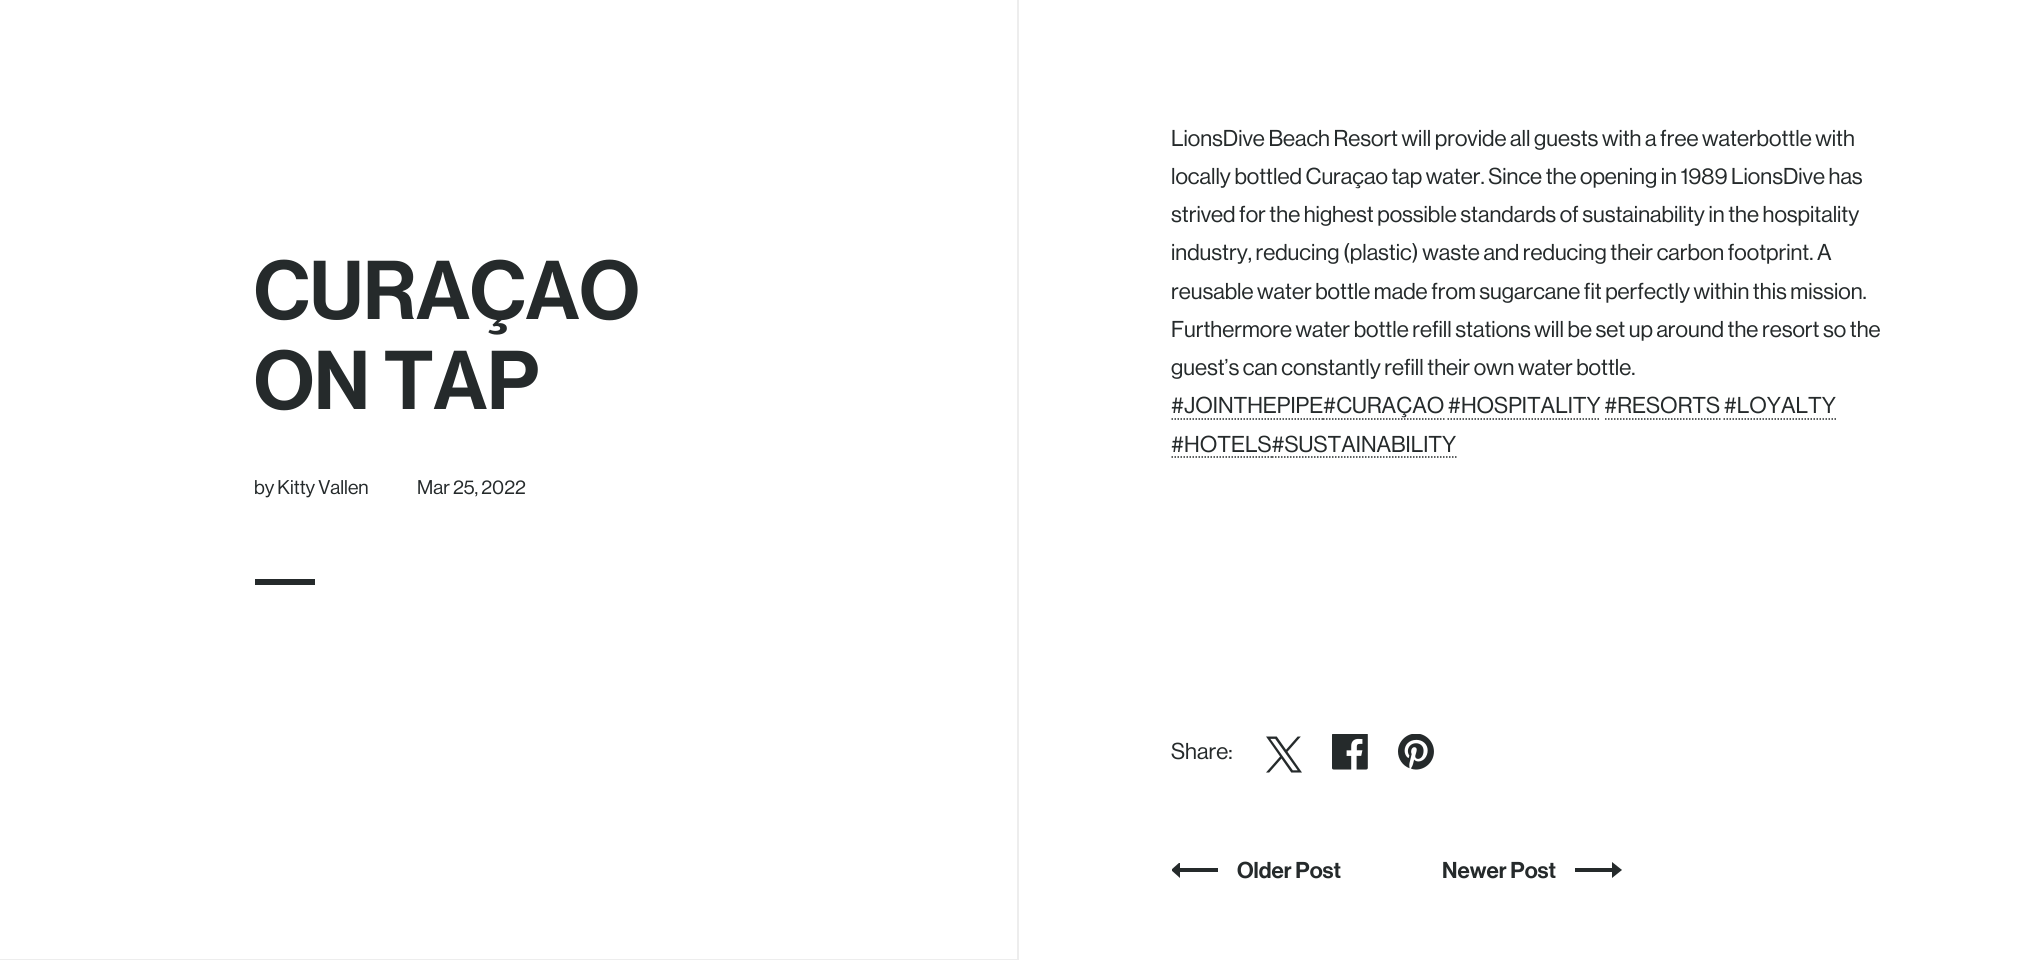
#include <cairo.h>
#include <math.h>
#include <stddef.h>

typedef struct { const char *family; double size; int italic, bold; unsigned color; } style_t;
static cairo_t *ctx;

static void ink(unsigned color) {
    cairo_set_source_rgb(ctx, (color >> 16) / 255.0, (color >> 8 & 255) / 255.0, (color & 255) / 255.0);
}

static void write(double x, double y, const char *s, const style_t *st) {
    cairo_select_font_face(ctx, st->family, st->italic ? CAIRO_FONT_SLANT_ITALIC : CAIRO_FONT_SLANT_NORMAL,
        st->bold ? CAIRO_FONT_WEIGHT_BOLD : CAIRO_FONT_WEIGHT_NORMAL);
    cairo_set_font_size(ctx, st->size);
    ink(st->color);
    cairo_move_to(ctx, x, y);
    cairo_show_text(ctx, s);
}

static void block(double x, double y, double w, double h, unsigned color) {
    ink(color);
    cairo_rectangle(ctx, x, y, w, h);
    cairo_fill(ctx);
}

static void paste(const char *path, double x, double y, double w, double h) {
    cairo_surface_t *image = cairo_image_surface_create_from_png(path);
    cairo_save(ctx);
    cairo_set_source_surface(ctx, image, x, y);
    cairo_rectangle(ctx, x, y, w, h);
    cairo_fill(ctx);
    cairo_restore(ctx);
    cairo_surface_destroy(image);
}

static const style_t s1 = {"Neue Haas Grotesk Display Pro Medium", 81.5, 0, 0, 0x252a2b};
static const style_t s2 = {"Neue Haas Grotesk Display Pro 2 Medium", 19.5, 0, 0, 0x252a2b};
static const style_t s3 = {"Neue Haas Grotesk Display Pro 2 Medium", 22.5, 0, 0, 0x252a2b};
static const style_t s4 = {"Neue Haas Grotesk Display Pro Medium", 22.5, 0, 0, 0x252a2b};

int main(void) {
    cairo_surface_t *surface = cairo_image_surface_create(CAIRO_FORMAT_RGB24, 2036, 960);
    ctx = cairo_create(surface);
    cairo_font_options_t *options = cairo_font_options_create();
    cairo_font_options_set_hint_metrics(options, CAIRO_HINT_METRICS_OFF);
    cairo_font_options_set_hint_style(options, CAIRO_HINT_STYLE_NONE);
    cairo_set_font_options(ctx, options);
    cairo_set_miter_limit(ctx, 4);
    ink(0xffffff);
    cairo_paint(ctx);
    block(1017, 0, 2, 960, 0xededed);
    block(0, 959, 1019, 1, 0xededed);
    write(254, 319, "CURAÇAO", &s1);
    write(254, 409, "ON TAP", &s1);
    write(254, 494, "by Kitty Vallen", &s2);
    write(417, 494, "Mar 25, 2022", &s2);
    block(255, 579, 60, 6, 0x252a2b);
    write(1171, 146, "LionsDive Beach Resort will provide all guests with a free waterbottle with", &s3);
    write(1171, 184, "locally bottled Curaçao tap water. Since the opening in 1989 LionsDive has", &s3);
    write(1171, 222, "strived for the highest possible standards of sustainability in the hospitality", &s3);
    write(1171, 260, "industry, reducing (plastic) waste and reducing their carbon footprint. A", &s3);
    write(1171, 299, "reusable water bottle made from sugarcane fit perfectly within this mission.", &s3);
    write(1171, 337, "Furthermore water bottle refill stations will be set up around the resort so the", &s3);
    write(1171, 375, "guest’s can constantly refill their own water bottle.", &s3);
    write(1171, 413, "#JOINTHEPIPE#CURAÇAO #HOSPITALITY #RESORTS #LOYALTY", &s3);
    cairo_new_path(ctx);
    cairo_move_to(ctx, 1171.5, 419);
    cairo_line_to(ctx, 1323, 419);
    cairo_set_line_width(ctx, 1.5);
    cairo_set_dash(ctx, (double[]){1.5, 1.5}, 2, 0);
    cairo_stroke(ctx);
    cairo_new_path(ctx);
    cairo_move_to(ctx, 1323, 419);
    cairo_line_to(ctx, 1444.5, 419);
    cairo_stroke(ctx);
    cairo_new_path(ctx);
    cairo_move_to(ctx, 1447.5, 419);
    cairo_line_to(ctx, 1600.5, 419);
    cairo_stroke(ctx);
    cairo_new_path(ctx);
    cairo_move_to(ctx, 1605, 419);
    cairo_line_to(ctx, 1720.5, 419);
    cairo_stroke(ctx);
    cairo_new_path(ctx);
    cairo_move_to(ctx, 1723.5, 419);
    cairo_line_to(ctx, 1836, 419);
    cairo_stroke(ctx);
    write(1171, 452, "#HOTELS#SUSTAINABILITY", &s3);
    cairo_new_path(ctx);
    cairo_move_to(ctx, 1171.5, 457);
    cairo_line_to(ctx, 1272, 457);
    cairo_stroke(ctx);
    cairo_new_path(ctx);
    cairo_move_to(ctx, 1272, 457);
    cairo_line_to(ctx, 1456.5, 457);
    cairo_stroke(ctx);
    write(1171, 759, "Share:", &s3);
    paste("pic1.png", 1266, 736, 36, 37);
    paste("pic2.png", 1332, 734, 36, 36);
    paste("pic3.png", 1398, 734, 36, 36);
    write(1237, 878, "Older Post", &s4);
    cairo_save(ctx);
    cairo_rectangle(ctx, 1172, 863, 46, 15);
    cairo_clip(ctx);
    cairo_new_path(ctx);
    cairo_move_to(ctx, 1171, 870);
    cairo_line_to(ctx, 1180, 878);
    cairo_line_to(ctx, 1180, 872);
    cairo_line_to(ctx, 1218, 872);
    cairo_line_to(ctx, 1218, 868);
    cairo_line_to(ctx, 1180, 868);
    cairo_line_to(ctx, 1180, 862);
    cairo_close_path(ctx);
    cairo_fill(ctx);
    cairo_restore(ctx);
    write(1442, 878, "Newer Post", &s4);
    cairo_new_path(ctx);
    cairo_move_to(ctx, 1622, 870);
    cairo_line_to(ctx, 1612, 862);
    cairo_line_to(ctx, 1612, 868);
    cairo_line_to(ctx, 1575, 868);
    cairo_line_to(ctx, 1575, 872);
    cairo_line_to(ctx, 1612, 872);
    cairo_line_to(ctx, 1612, 878);
    cairo_close_path(ctx);
    cairo_fill(ctx);
    cairo_surface_write_to_png(surface, "screenshot.png");
    cairo_font_options_destroy(options);
    cairo_destroy(ctx);
    cairo_surface_destroy(surface);
    return 0;
}
